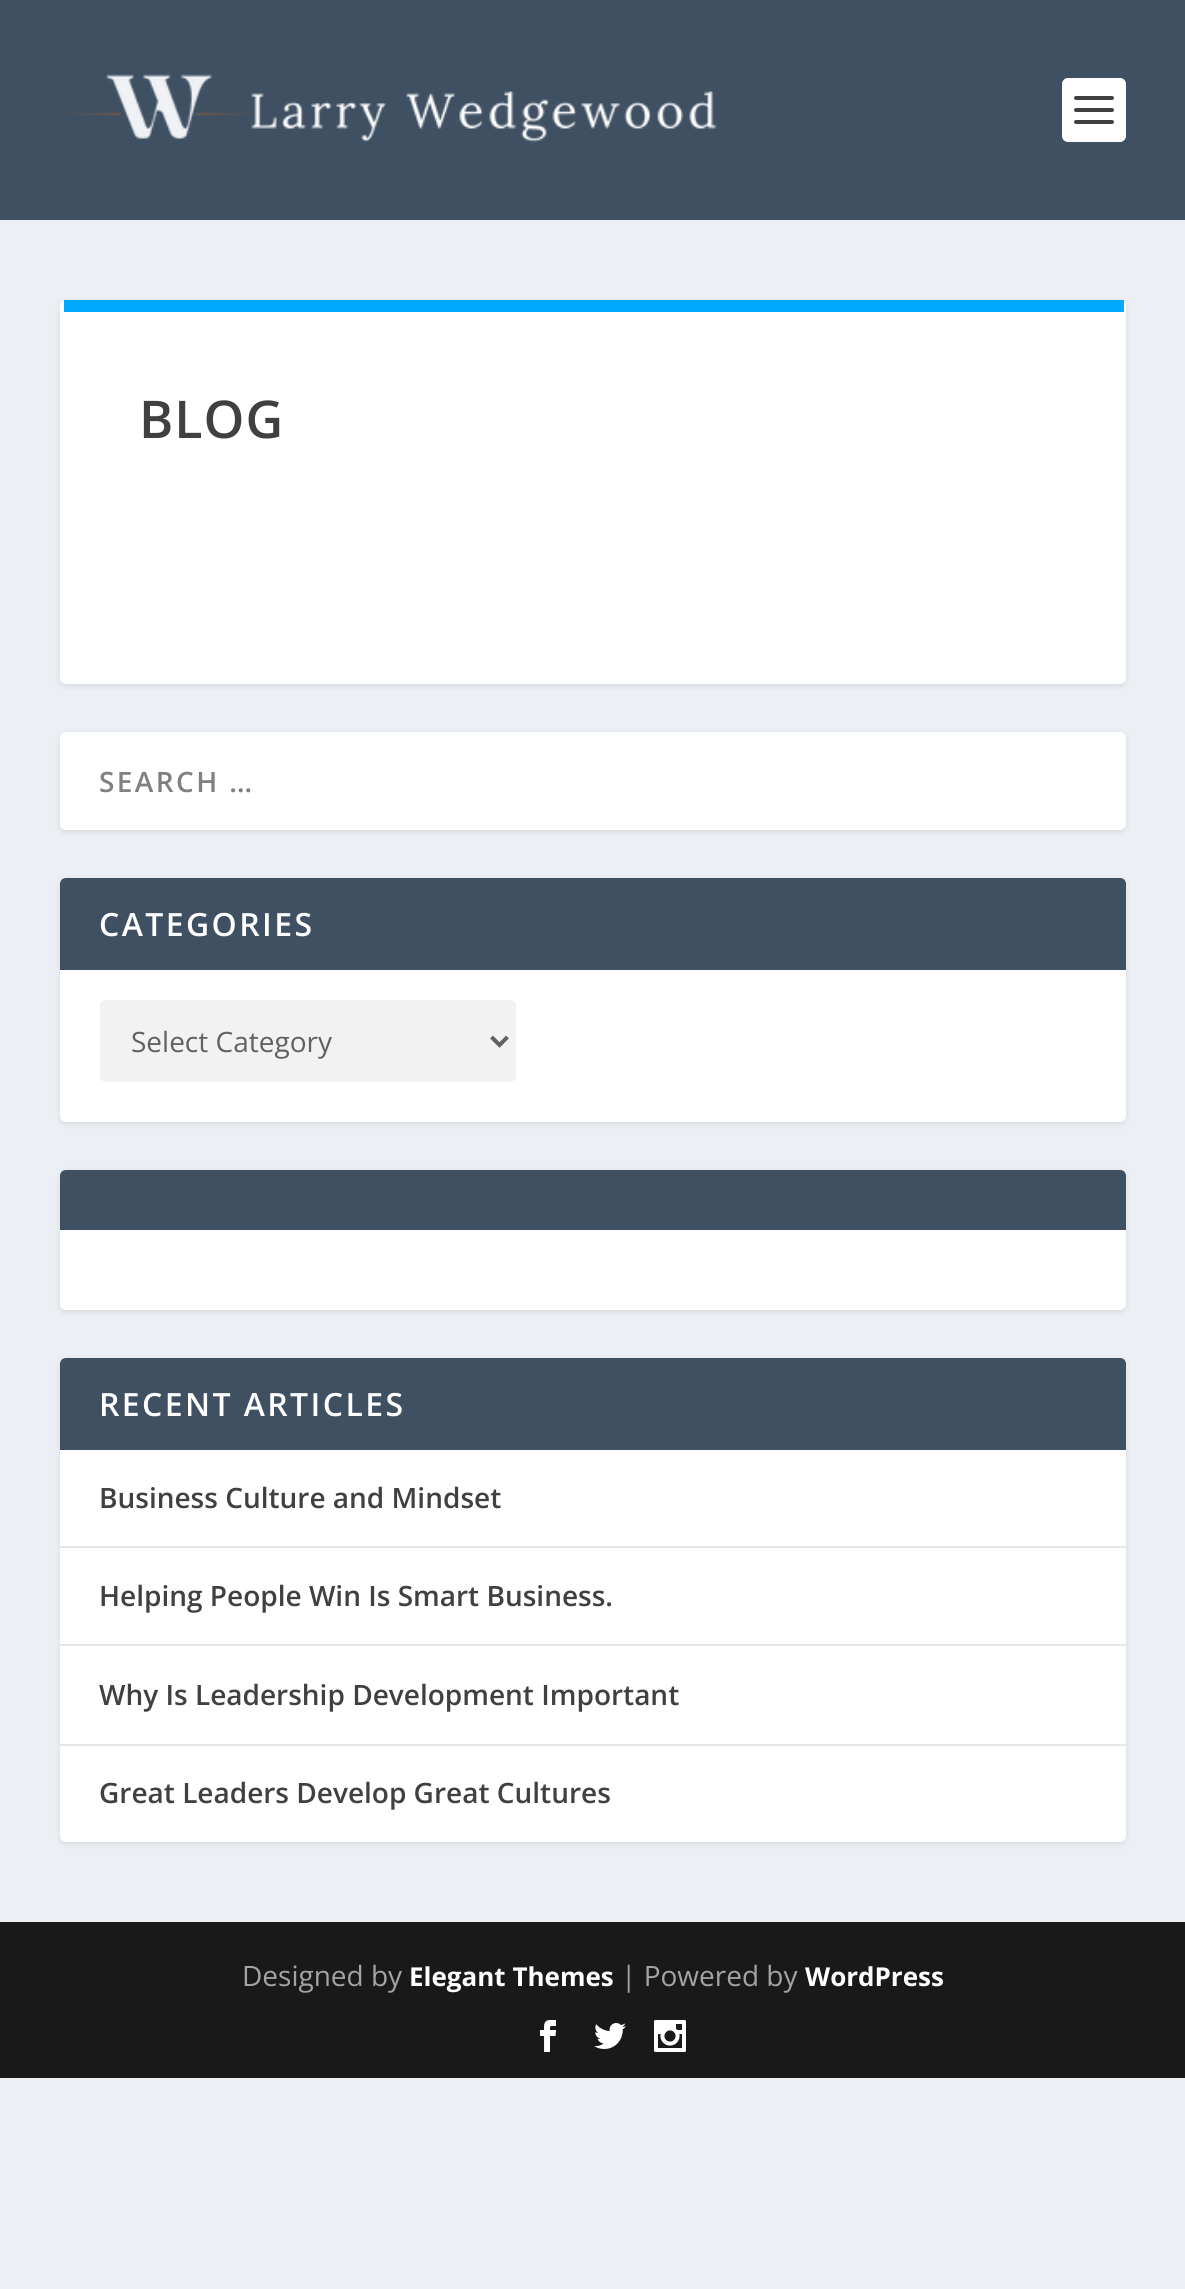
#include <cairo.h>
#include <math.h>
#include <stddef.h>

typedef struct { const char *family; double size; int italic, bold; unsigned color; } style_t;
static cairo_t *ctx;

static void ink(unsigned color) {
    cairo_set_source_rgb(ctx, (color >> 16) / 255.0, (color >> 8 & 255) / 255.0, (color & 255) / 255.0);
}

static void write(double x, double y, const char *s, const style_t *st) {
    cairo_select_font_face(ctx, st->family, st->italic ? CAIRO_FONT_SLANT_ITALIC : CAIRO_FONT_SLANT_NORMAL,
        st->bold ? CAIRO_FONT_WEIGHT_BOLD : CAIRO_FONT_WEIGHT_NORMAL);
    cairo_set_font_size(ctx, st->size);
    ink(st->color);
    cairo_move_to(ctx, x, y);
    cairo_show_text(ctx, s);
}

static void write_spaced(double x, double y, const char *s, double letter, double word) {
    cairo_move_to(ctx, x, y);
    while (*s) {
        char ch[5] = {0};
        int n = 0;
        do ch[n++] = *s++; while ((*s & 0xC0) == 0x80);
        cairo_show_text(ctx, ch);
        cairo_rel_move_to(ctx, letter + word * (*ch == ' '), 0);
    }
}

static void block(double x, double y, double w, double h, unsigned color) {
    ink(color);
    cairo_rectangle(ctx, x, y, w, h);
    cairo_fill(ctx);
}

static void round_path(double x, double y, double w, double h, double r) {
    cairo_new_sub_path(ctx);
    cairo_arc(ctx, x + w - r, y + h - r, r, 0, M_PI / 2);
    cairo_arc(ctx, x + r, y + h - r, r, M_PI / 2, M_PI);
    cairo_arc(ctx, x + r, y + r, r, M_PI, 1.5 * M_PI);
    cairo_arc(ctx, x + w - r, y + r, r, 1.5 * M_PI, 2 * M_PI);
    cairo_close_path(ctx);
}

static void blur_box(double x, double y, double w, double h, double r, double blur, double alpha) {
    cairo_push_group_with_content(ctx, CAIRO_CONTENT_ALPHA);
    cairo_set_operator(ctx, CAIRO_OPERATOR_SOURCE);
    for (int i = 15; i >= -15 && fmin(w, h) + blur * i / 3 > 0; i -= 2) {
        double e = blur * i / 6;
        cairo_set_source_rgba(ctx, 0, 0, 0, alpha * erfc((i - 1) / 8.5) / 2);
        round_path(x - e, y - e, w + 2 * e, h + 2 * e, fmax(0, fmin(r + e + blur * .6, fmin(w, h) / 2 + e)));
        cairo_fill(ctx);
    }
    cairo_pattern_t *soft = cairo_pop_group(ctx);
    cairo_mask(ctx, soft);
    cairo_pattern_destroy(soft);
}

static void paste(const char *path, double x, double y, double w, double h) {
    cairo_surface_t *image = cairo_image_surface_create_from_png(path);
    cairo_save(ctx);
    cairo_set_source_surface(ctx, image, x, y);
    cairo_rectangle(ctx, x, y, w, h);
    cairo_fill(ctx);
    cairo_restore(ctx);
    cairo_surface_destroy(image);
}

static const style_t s1 = {"Open Sans", 28, 0, 0, 0x616161};
static const style_t s2 = {"Open Sans SemiBold", 28, 0, 0, 0x404040};
static const style_t s3 = {"Open Sans", 28, 0, 0, 0xa3a3a3};
static const style_t s4 = {"Open Sans", 26, 0, 1, 0xffffff};

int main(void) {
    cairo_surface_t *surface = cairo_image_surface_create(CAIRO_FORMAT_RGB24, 1185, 2289);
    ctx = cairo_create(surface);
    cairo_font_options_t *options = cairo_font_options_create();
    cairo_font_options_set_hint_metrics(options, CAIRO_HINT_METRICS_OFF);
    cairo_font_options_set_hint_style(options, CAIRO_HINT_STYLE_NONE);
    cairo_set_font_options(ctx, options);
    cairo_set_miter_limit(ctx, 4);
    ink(0xecf0f5);
    cairo_paint(ctx);
    block(0, 0, 1185, 220, 0x3e5062);
    paste("pic1.png", 66, 74, 651, 68);
    ink(0xffffff);
    round_path(1062, 78, 64, 64, 6);
    cairo_fill(ctx);
    ink(0x404040);
    round_path(1074, 96, 40, 4, 2);
    cairo_fill(ctx);
    round_path(1074, 108, 40, 4, 2);
    cairo_fill(ctx);
    round_path(1074, 120, 40, 4, 2);
    cairo_fill(ctx);
    ink(0x000000);
    blur_box(60, 302, 1066, 384, 6, 3, 0.1);
    ink(0xffffff);
    round_path(60, 300, 1066, 384, 6);
    cairo_fill(ctx);
    block(64, 300, 1060, 12, 0x00a8ff);
    cairo_select_font_face(ctx, "Open Sans SemiBold", CAIRO_FONT_SLANT_NORMAL, CAIRO_FONT_WEIGHT_NORMAL);
    cairo_set_font_size(ctx, 52);
    ink(0x404040);
    write_spaced(139, 438, "BLOG", 1, 0);
    ink(0x000000);
    blur_box(60, 734, 1066, 98, 6, 3, 0.1);
    ink(0xffffff);
    round_path(60, 732, 1066, 98, 6);
    cairo_fill(ctx);
    cairo_set_font_size(ctx, 28);
    ink(0x808080);
    write_spaced(99, 792, "SEARCH …", 2.4, 0);
    ink(0x000000);
    blur_box(60, 880, 1066, 244, 6, 3, 0.1);
    ink(0xffffff);
    round_path(60, 878, 1066, 244, 6);
    cairo_fill(ctx);
    ink(0x3e5062);
    cairo_new_path(ctx);
    cairo_move_to(ctx, 66, 878);
    cairo_line_to(ctx, 1120, 878);
    cairo_curve_to(ctx, 1123.5, 878, 1126, 880.5, 1126, 884);
    cairo_line_to(ctx, 1126, 970);
    cairo_line_to(ctx, 60, 970);
    cairo_line_to(ctx, 60, 884);
    cairo_curve_to(ctx, 60, 880.5, 62.5, 878, 66, 878);
    cairo_close_path(ctx);
    cairo_fill(ctx);
    cairo_set_font_size(ctx, 32);
    ink(0xffffff);
    write_spaced(99, 936, "CATEGORIES", 2.4, 0);
    ink(0xf2f2f2);
    round_path(100, 1000, 416, 82, 6);
    cairo_fill(ctx);
    cairo_new_path(ctx);
    cairo_move_to(ctx, 491.5, 1037);
    cairo_line_to(ctx, 499.5, 1045);
    cairo_line_to(ctx, 507.5, 1037);
    ink(0x616161);
    cairo_set_line_width(ctx, 4);
    cairo_stroke(ctx);
    write(131, 1052, "Select Category", &s1);
    ink(0x000000);
    blur_box(60, 1172, 1066, 140, 6, 3, 0.1);
    ink(0xffffff);
    round_path(60, 1170, 1066, 140, 6);
    cairo_fill(ctx);
    ink(0x3e5062);
    cairo_new_path(ctx);
    cairo_move_to(ctx, 66, 1170);
    cairo_line_to(ctx, 1120, 1170);
    cairo_curve_to(ctx, 1123.5, 1170, 1126, 1172.5, 1126, 1176);
    cairo_line_to(ctx, 1126, 1230);
    cairo_line_to(ctx, 60, 1230);
    cairo_line_to(ctx, 60, 1176);
    cairo_curve_to(ctx, 60, 1172.5, 62.5, 1170, 66, 1170);
    cairo_close_path(ctx);
    cairo_fill(ctx);
    ink(0x000000);
    blur_box(60, 1360, 1066, 484, 6, 3, 0.1);
    ink(0xffffff);
    round_path(60, 1358, 1066, 484, 6);
    cairo_fill(ctx);
    ink(0x3e5062);
    cairo_new_path(ctx);
    cairo_move_to(ctx, 66, 1358);
    cairo_line_to(ctx, 1120, 1358);
    cairo_curve_to(ctx, 1123.5, 1358, 1126, 1360.5, 1126, 1364);
    cairo_line_to(ctx, 1126, 1450);
    cairo_line_to(ctx, 60, 1450);
    cairo_line_to(ctx, 60, 1364);
    cairo_curve_to(ctx, 60, 1360.5, 62.5, 1358, 66, 1358);
    cairo_close_path(ctx);
    cairo_fill(ctx);
    cairo_select_font_face(ctx, "Open Sans SemiBold", CAIRO_FONT_SLANT_NORMAL, CAIRO_FONT_WEIGHT_NORMAL);
    cairo_set_font_size(ctx, 32);
    ink(0xffffff);
    write_spaced(99, 1416, "RECENT ARTICLES", 2.4, 0);
    block(60, 1546, 1066, 2, 0xe6e6e6);
    write(99, 1508, "Business Culture and Mindset", &s2);
    block(60, 1644, 1066, 2, 0xe6e6e6);
    write(99, 1606, "Helping People Win Is Smart Business.", &s2);
    block(60, 1744, 1066, 2, 0xe6e6e6);
    write(99, 1705, "Why Is Leadership Development Important", &s2);
    write(99, 1803, "Great Leaders Develop Great Cultures", &s2);
    block(0, 1922, 1185, 156, 0x191919);
    write(242, 1986, "Designed by", &s3);
    write(409, 1986, "Elegant Themes", &s4);
    write(621, 1986, "| Powered by", &s3);
    write(805, 1986, "WordPress", &s4);
    paste("pic2.png", 540, 2020, 17, 32);
    paste("pic3.png", 594, 2023, 32, 26);
    paste("pic4.png", 654, 2020, 32, 32);
    cairo_surface_write_to_png(surface, "screenshot.png");
    cairo_font_options_destroy(options);
    cairo_destroy(ctx);
    cairo_surface_destroy(surface);
    return 0;
}
